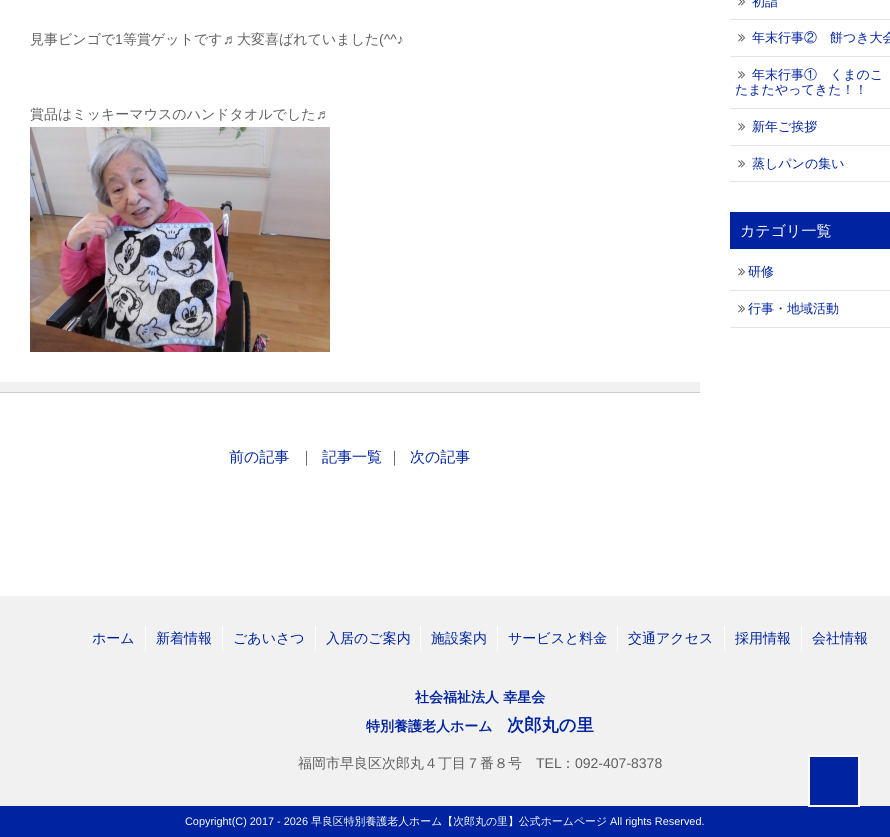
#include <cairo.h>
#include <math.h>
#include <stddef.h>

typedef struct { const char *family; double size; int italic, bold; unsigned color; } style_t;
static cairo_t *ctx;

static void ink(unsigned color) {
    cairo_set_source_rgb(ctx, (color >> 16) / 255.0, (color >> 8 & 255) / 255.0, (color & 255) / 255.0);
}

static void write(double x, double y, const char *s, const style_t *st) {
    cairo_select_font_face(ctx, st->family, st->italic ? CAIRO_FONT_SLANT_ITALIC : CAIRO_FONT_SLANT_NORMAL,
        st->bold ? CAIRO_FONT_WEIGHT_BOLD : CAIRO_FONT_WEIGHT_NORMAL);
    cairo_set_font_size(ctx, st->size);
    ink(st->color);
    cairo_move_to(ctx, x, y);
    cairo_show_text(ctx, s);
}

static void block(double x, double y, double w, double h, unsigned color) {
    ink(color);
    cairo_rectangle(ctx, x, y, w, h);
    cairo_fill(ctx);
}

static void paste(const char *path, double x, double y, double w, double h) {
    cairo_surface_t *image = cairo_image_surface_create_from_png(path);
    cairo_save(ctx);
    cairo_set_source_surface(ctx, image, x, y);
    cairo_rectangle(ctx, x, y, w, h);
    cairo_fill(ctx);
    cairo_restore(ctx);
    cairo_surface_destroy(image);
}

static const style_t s1 = {"WenQuanYi Zen Hei Medium", 14, 0, 0, 0x5f5f5f};
static const style_t s2 = {"Liberation Sans", 14, 0, 0, 0x5f5f5f};
static const style_t s3 = {"WenQuanYi Zen Hei Medium", 15, 0, 0, 0x0023a1};
static const style_t s4 = {"WenQuanYi Zen Hei Medium", 15, 0, 0, 0x5f5f5f};
static const style_t s5 = {"WenQuanYi Zen Hei Medium", 13, 0, 0, 0x0023a1};
static const style_t s6 = {"WenQuanYi Zen Hei Medium", 15, 0, 0, 0xffffff};
static const style_t s7 = {"WenQuanYi Zen Hei Medium", 14, 0, 0, 0x0023a1};
static const style_t s8 = {"WenQuanYi Zen Hei", 14, 0, 1, 0x0023a1};
static const style_t s9 = {"WenQuanYi Zen Hei", 17.25, 0, 1, 0x0023a1};
static const style_t s10 = {"Liberation Sans", 10.9, 0, 0, 0xffffff};
static const style_t s11 = {"WenQuanYi Zen Hei Medium", 10.9, 0, 0, 0xffffff};

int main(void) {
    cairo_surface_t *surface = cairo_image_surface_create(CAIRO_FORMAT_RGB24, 890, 837);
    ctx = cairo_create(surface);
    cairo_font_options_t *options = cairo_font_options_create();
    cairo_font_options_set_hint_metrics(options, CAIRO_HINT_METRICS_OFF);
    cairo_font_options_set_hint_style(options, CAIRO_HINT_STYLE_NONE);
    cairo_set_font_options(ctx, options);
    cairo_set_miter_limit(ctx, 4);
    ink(0xffffff);
    cairo_paint(ctx);
    block(0, 392, 700, 1, 0xcccccc);
    write(30, 44, "見事ビンゴで", &s1);
    write(115, 44, "1", &s2);
    write(123, 44, "等賞ゲットです", &s1);
    write(223, 44, "♬", &s2);
    write(237, 44, "大変喜ばれていました", &s1);
    write(379, 44, "(^^♪", &s2);
    write(30, 119, "賞品はミッキーマウスのハンドタオルでした", &s1);
    write(316, 119, "♬", &s2);
    paste("pic1.png", 30, 127, 300, 225);
    block(0, 382, 700, 10, 0xf1f1f1);
    write(229, 462, "前の記事", &s3);
    write(299, 462, "｜", &s4);
    write(322, 462, "記事一覧", &s3);
    write(387, 462, "｜", &s4);
    write(410, 462, "次の記事", &s3);
    block(730, 19, 160, 1, 0xe5e5e5);
    paste("pic2.png", 738, 0, 8, 6);
    write(752, 6, "初詣", &s5);
    block(730, 56, 160, 1, 0xe5e5e5);
    paste("pic3.png", 738, 34, 8, 8);
    write(752, 42, "年末行事②　餅つき大会", &s5);
    block(730, 108, 160, 1, 0xe5e5e5);
    paste("pic3.png", 738, 71, 8, 8);
    write(752, 79, "年末行事①　くまのこ", &s5);
    write(735, 94, "たまたやってきた！！", &s5);
    block(730, 145, 160, 1, 0xe5e5e5);
    paste("pic3.png", 738, 123, 8, 8);
    write(752, 131, "新年ご挨拶", &s5);
    block(730, 181, 160, 1, 0xe5e5e5);
    paste("pic3.png", 738, 160, 8, 8);
    write(752, 168, "蒸しパンの集い", &s5);
    block(730, 212, 160, 37, 0x0023a1);
    write(740, 236, "カテゴリ一覧", &s6);
    block(730, 290, 160, 1, 0xe5e5e5);
    paste("pic3.png", 738, 268, 8, 8);
    write(748, 276, "研修", &s5);
    block(730, 327, 160, 1, 0xe5e5e5);
    paste("pic3.png", 738, 305, 8, 8);
    write(748, 313, "行事・地域活動", &s5);
    block(0, 596, 890, 210, 0xf1f1f1);
    write(92, 643, "ホーム", &s7);
    block(145, 626, 1, 25, 0xffffff);
    write(156, 643, "新着情報", &s7);
    block(222, 626, 1, 25, 0xffffff);
    write(233, 643, "ごあいさつ", &s7);
    block(315, 626, 1, 25, 0xffffff);
    write(326, 643, "入居のご案内", &s7);
    block(420, 626, 1, 25, 0xffffff);
    write(431, 643, "施設案内", &s7);
    block(497, 626, 1, 25, 0xffffff);
    write(508, 643, "サービスと料金", &s7);
    block(617, 626, 1, 25, 0xffffff);
    write(628, 643, "交通アクセス", &s7);
    block(724, 626, 1, 25, 0xffffff);
    write(735, 643, "採用情報", &s7);
    block(801, 626, 1, 25, 0xffffff);
    write(812, 643, "会社情報", &s7);
    write(415, 702, "社会福祉法人 幸星会", &s8);
    write(366, 731, "特別養護老人ホーム", &s8);
    write(507, 731, "次郎丸の里", &s9);
    write(298, 768, "福岡市早良区次郎丸４丁目７番８号", &s1);
    write(536, 768, "TEL", &s2);
    write(561, 768, "：", &s1);
    write(575, 768, "092-407-8378", &s2);
    block(0, 806, 890, 31, 0x0023a1);
    write(185, 825, "Copyright(C) 2017 - 2026", &s10);
    write(311, 825, "早良区特別養護老人ホーム【次郎丸の里】公式ホームページ", &s11);
    write(610, 825, "All rights Reserved.", &s10);
    cairo_rectangle(ctx, 809, 756, 50, 50);
    cairo_stroke(ctx);
    block(810, 757, 48, 48, 0x0023a1);
    cairo_surface_write_to_png(surface, "screenshot.png");
    cairo_font_options_destroy(options);
    cairo_destroy(ctx);
    cairo_surface_destroy(surface);
    return 0;
}
